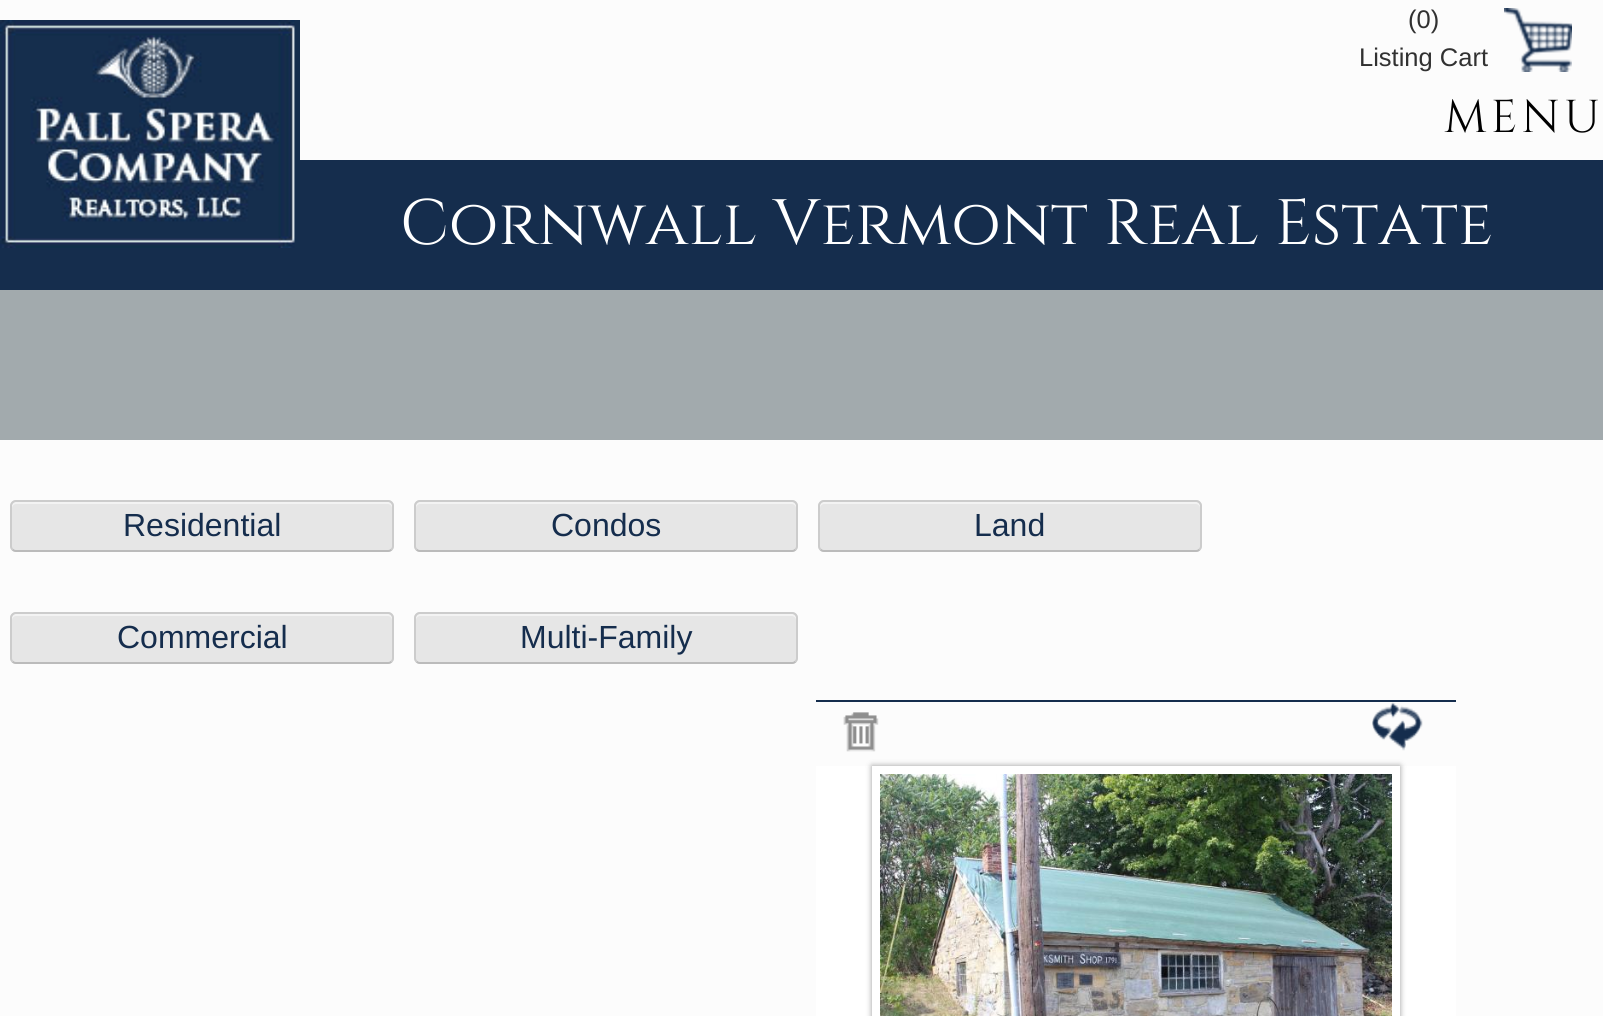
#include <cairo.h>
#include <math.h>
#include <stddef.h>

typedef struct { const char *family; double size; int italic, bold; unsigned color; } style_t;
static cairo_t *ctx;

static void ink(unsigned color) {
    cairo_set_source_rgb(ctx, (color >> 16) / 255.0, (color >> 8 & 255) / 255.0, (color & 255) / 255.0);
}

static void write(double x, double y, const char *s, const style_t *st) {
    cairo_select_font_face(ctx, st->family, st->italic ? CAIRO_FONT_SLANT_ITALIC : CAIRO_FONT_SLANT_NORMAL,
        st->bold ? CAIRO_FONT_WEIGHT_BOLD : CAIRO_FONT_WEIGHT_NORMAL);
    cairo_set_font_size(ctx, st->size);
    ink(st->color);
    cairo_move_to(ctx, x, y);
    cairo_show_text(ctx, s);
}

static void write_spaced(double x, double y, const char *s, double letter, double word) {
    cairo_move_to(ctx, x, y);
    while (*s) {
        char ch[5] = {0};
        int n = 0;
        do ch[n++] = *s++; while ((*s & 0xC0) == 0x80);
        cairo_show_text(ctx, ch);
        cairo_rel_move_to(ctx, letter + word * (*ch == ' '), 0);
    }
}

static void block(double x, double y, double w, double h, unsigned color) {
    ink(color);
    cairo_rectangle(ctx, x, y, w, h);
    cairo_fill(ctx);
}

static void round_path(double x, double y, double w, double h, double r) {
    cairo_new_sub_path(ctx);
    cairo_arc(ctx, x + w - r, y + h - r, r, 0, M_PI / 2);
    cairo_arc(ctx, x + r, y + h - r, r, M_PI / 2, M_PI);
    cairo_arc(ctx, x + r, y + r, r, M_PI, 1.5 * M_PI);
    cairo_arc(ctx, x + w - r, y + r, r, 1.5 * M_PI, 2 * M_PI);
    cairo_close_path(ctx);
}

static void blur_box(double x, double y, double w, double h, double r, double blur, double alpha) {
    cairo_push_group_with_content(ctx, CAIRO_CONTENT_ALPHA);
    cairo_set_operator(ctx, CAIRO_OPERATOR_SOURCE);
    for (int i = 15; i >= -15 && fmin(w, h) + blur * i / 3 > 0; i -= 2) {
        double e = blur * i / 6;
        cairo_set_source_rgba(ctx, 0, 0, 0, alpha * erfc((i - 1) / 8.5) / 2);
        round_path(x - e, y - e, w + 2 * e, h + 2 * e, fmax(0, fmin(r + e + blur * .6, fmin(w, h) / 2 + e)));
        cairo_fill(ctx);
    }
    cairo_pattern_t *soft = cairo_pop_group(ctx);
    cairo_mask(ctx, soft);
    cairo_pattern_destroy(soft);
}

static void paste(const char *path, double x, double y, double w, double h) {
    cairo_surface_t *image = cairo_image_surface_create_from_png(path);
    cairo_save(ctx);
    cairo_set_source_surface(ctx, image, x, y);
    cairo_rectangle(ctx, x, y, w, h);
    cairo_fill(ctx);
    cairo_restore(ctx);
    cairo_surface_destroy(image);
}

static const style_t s1 = {"Liberation Sans", 25.5, 0, 0, 0x313131};
static const style_t s2 = {"Cinzel", 64, 0, 0, 0xffffff};
static const style_t s3 = {"Liberation Sans", 32, 0, 0, 0x152d4d};

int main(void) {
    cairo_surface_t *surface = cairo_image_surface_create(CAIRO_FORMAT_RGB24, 1603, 1016);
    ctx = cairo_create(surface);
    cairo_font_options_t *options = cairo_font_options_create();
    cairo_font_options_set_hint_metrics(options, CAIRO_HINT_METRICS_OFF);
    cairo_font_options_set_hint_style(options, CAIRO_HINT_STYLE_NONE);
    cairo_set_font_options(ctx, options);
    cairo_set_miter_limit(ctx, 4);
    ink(0xfcfcfc);
    cairo_paint(ctx);
    paste("pic1.png", 1504, 8, 68, 64);
    write(1408, 28, "(0)", &s1);
    write(1359, 66, "Listing Cart", &s1);
    block(0, 160, 1603, 130, 0x152d4d);
    paste("pic2.png", 0, 20, 300, 228);
    cairo_select_font_face(ctx, "Cinzel", CAIRO_FONT_SLANT_NORMAL, CAIRO_FONT_WEIGHT_NORMAL);
    cairo_set_font_size(ctx, 46);
    ink(0x000000);
    write_spaced(1444, 132, "MENU", 4, 0);
    write(400, 244, "Cornwall Vermont Real Estate", &s2);
    block(0, 290, 1603, 150, 0xa2aaad);
    ink(0xe6e6e6);
    round_path(10, 500, 384, 52, 6);
    cairo_fill(ctx);
    ink(0xf3f3f3);
    cairo_new_path(ctx);
    cairo_move_to(ctx, 16, 504);
    cairo_line_to(ctx, 388, 504);
    cairo_curve_to(ctx, 390, 504, 392, 506, 392, 508);
    cairo_line_to(ctx, 392, 506);
    cairo_curve_to(ctx, 392, 504, 390, 502, 388, 502);
    cairo_line_to(ctx, 16, 502);
    cairo_curve_to(ctx, 14, 502, 12, 504, 12, 506);
    cairo_line_to(ctx, 12, 508);
    cairo_curve_to(ctx, 12, 506, 14, 504, 16, 504);
    cairo_close_path(ctx);
    cairo_fill(ctx);
    cairo_new_path(ctx);
    cairo_move_to(ctx, 391.5, 549.5);
    cairo_curve_to(ctx, 390.5, 550.5, 389.5, 551, 388, 551);
    cairo_line_to(ctx, 16, 551);
    cairo_curve_to(ctx, 14.5, 551, 13.5, 550.5, 12.5, 549.5);
    ink(0xbbbbbb);
    cairo_stroke(ctx);
    cairo_new_path(ctx);
    cairo_move_to(ctx, 12.5, 549.5);
    cairo_curve_to(ctx, 11.5, 548.5, 11, 547.5, 11, 546);
    cairo_line_to(ctx, 11, 506);
    cairo_curve_to(ctx, 11, 504.5, 11.5, 503.5, 12.5, 502.5);
    cairo_curve_to(ctx, 13.5, 501.5, 14.5, 501, 16, 501);
    cairo_line_to(ctx, 388, 501);
    cairo_curve_to(ctx, 389.5, 501, 390.5, 501.5, 391.5, 502.5);
    cairo_curve_to(ctx, 392.5, 503.5, 393, 504.5, 393, 506);
    cairo_line_to(ctx, 393, 546);
    cairo_curve_to(ctx, 393, 547.5, 392.5, 548.5, 391.5, 549.5);
    ink(0xcccccc);
    cairo_stroke(ctx);
    write(123, 536, "Residential", &s3);
    ink(0xe6e6e6);
    round_path(414, 500, 384, 52, 6);
    cairo_fill(ctx);
    ink(0xf3f3f3);
    cairo_new_path(ctx);
    cairo_move_to(ctx, 420, 504);
    cairo_line_to(ctx, 792, 504);
    cairo_curve_to(ctx, 794, 504, 796, 506, 796, 508);
    cairo_line_to(ctx, 796, 506);
    cairo_curve_to(ctx, 796, 504, 794, 502, 792, 502);
    cairo_line_to(ctx, 420, 502);
    cairo_curve_to(ctx, 418, 502, 416, 504, 416, 506);
    cairo_line_to(ctx, 416, 508);
    cairo_curve_to(ctx, 416, 506, 418, 504, 420, 504);
    cairo_close_path(ctx);
    cairo_fill(ctx);
    cairo_new_path(ctx);
    cairo_move_to(ctx, 795.5, 549.5);
    cairo_curve_to(ctx, 794.5, 550.5, 793.5, 551, 792, 551);
    cairo_line_to(ctx, 420, 551);
    cairo_curve_to(ctx, 418.5, 551, 417.5, 550.5, 416.5, 549.5);
    ink(0xbbbbbb);
    cairo_stroke(ctx);
    cairo_new_path(ctx);
    cairo_move_to(ctx, 416.5, 549.5);
    cairo_curve_to(ctx, 415.5, 548.5, 415, 547.5, 415, 546);
    cairo_line_to(ctx, 415, 506);
    cairo_curve_to(ctx, 415, 504.5, 415.5, 503.5, 416.5, 502.5);
    cairo_curve_to(ctx, 417.5, 501.5, 418.5, 501, 420, 501);
    cairo_line_to(ctx, 792, 501);
    cairo_curve_to(ctx, 793.5, 501, 794.5, 501.5, 795.5, 502.5);
    cairo_curve_to(ctx, 796.5, 503.5, 797, 504.5, 797, 506);
    cairo_line_to(ctx, 797, 546);
    cairo_curve_to(ctx, 797, 547.5, 796.5, 548.5, 795.5, 549.5);
    ink(0xcccccc);
    cairo_stroke(ctx);
    write(551, 536, "Condos", &s3);
    ink(0xe6e6e6);
    round_path(818, 500, 384, 52, 6);
    cairo_fill(ctx);
    ink(0xf3f3f3);
    cairo_new_path(ctx);
    cairo_move_to(ctx, 824, 504);
    cairo_line_to(ctx, 1196, 504);
    cairo_curve_to(ctx, 1198, 504, 1200, 506, 1200, 508);
    cairo_line_to(ctx, 1200, 506);
    cairo_curve_to(ctx, 1200, 504, 1198, 502, 1196, 502);
    cairo_line_to(ctx, 824, 502);
    cairo_curve_to(ctx, 822, 502, 820, 504, 820, 506);
    cairo_line_to(ctx, 820, 508);
    cairo_curve_to(ctx, 820, 506, 822, 504, 824, 504);
    cairo_close_path(ctx);
    cairo_fill(ctx);
    cairo_new_path(ctx);
    cairo_move_to(ctx, 1199.5, 549.5);
    cairo_curve_to(ctx, 1198.5, 550.5, 1197.5, 551, 1196, 551);
    cairo_line_to(ctx, 824, 551);
    cairo_curve_to(ctx, 822.5, 551, 821.5, 550.5, 820.5, 549.5);
    ink(0xbbbbbb);
    cairo_stroke(ctx);
    cairo_new_path(ctx);
    cairo_move_to(ctx, 820.5, 549.5);
    cairo_curve_to(ctx, 819.5, 548.5, 819, 547.5, 819, 546);
    cairo_line_to(ctx, 819, 506);
    cairo_curve_to(ctx, 819, 504.5, 819.5, 503.5, 820.5, 502.5);
    cairo_curve_to(ctx, 821.5, 501.5, 822.5, 501, 824, 501);
    cairo_line_to(ctx, 1196, 501);
    cairo_curve_to(ctx, 1197.5, 501, 1198.5, 501.5, 1199.5, 502.5);
    cairo_curve_to(ctx, 1200.5, 503.5, 1201, 504.5, 1201, 506);
    cairo_line_to(ctx, 1201, 546);
    cairo_curve_to(ctx, 1201, 547.5, 1200.5, 548.5, 1199.5, 549.5);
    ink(0xcccccc);
    cairo_stroke(ctx);
    write(974, 536, "Land", &s3);
    ink(0xe6e6e6);
    round_path(10, 612, 384, 52, 6);
    cairo_fill(ctx);
    ink(0xf3f3f3);
    cairo_new_path(ctx);
    cairo_move_to(ctx, 16, 616);
    cairo_line_to(ctx, 388, 616);
    cairo_curve_to(ctx, 390, 616, 392, 618, 392, 620);
    cairo_line_to(ctx, 392, 618);
    cairo_curve_to(ctx, 392, 616, 390, 614, 388, 614);
    cairo_line_to(ctx, 16, 614);
    cairo_curve_to(ctx, 14, 614, 12, 616, 12, 618);
    cairo_line_to(ctx, 12, 620);
    cairo_curve_to(ctx, 12, 618, 14, 616, 16, 616);
    cairo_close_path(ctx);
    cairo_fill(ctx);
    cairo_new_path(ctx);
    cairo_move_to(ctx, 391.5, 661.5);
    cairo_curve_to(ctx, 390.5, 662.5, 389.5, 663, 388, 663);
    cairo_line_to(ctx, 16, 663);
    cairo_curve_to(ctx, 14.5, 663, 13.5, 662.5, 12.5, 661.5);
    ink(0xbbbbbb);
    cairo_stroke(ctx);
    cairo_new_path(ctx);
    cairo_move_to(ctx, 12.5, 661.5);
    cairo_curve_to(ctx, 11.5, 660.5, 11, 659.5, 11, 658);
    cairo_line_to(ctx, 11, 618);
    cairo_curve_to(ctx, 11, 616.5, 11.5, 615.5, 12.5, 614.5);
    cairo_curve_to(ctx, 13.5, 613.5, 14.5, 613, 16, 613);
    cairo_line_to(ctx, 388, 613);
    cairo_curve_to(ctx, 389.5, 613, 390.5, 613.5, 391.5, 614.5);
    cairo_curve_to(ctx, 392.5, 615.5, 393, 616.5, 393, 618);
    cairo_line_to(ctx, 393, 658);
    cairo_curve_to(ctx, 393, 659.5, 392.5, 660.5, 391.5, 661.5);
    ink(0xcccccc);
    cairo_stroke(ctx);
    write(117, 648, "Commercial", &s3);
    ink(0xe6e6e6);
    round_path(414, 612, 384, 52, 6);
    cairo_fill(ctx);
    ink(0xf3f3f3);
    cairo_new_path(ctx);
    cairo_move_to(ctx, 420, 616);
    cairo_line_to(ctx, 792, 616);
    cairo_curve_to(ctx, 794, 616, 796, 618, 796, 620);
    cairo_line_to(ctx, 796, 618);
    cairo_curve_to(ctx, 796, 616, 794, 614, 792, 614);
    cairo_line_to(ctx, 420, 614);
    cairo_curve_to(ctx, 418, 614, 416, 616, 416, 618);
    cairo_line_to(ctx, 416, 620);
    cairo_curve_to(ctx, 416, 618, 418, 616, 420, 616);
    cairo_close_path(ctx);
    cairo_fill(ctx);
    cairo_new_path(ctx);
    cairo_move_to(ctx, 795.5, 661.5);
    cairo_curve_to(ctx, 794.5, 662.5, 793.5, 663, 792, 663);
    cairo_line_to(ctx, 420, 663);
    cairo_curve_to(ctx, 418.5, 663, 417.5, 662.5, 416.5, 661.5);
    ink(0xbbbbbb);
    cairo_stroke(ctx);
    cairo_new_path(ctx);
    cairo_move_to(ctx, 416.5, 661.5);
    cairo_curve_to(ctx, 415.5, 660.5, 415, 659.5, 415, 658);
    cairo_line_to(ctx, 415, 618);
    cairo_curve_to(ctx, 415, 616.5, 415.5, 615.5, 416.5, 614.5);
    cairo_curve_to(ctx, 417.5, 613.5, 418.5, 613, 420, 613);
    cairo_line_to(ctx, 792, 613);
    cairo_curve_to(ctx, 793.5, 613, 794.5, 613.5, 795.5, 614.5);
    cairo_curve_to(ctx, 796.5, 615.5, 797, 616.5, 797, 618);
    cairo_line_to(ctx, 797, 658);
    cairo_curve_to(ctx, 797, 659.5, 796.5, 660.5, 795.5, 661.5);
    ink(0xcccccc);
    cairo_stroke(ctx);
    write(520, 648, "Multi-Family", &s3);
    block(816, 700, 640, 2, 0x152d4d);
    paste("pic3.png", 843, 712, 36, 40);
    paste("pic4.png", 1372, 702, 51, 49);
    block(816, 766, 640, 250, 0xffffff);
    cairo_save(ctx);
    cairo_set_fill_rule(ctx, CAIRO_FILL_RULE_EVEN_ODD);
    cairo_new_path(ctx);
    cairo_move_to(ctx, 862, 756);
    cairo_line_to(ctx, 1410, 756);
    cairo_line_to(ctx, 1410, 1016);
    cairo_line_to(ctx, 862, 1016);
    cairo_close_path(ctx);
    cairo_move_to(ctx, 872, 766);
    cairo_line_to(ctx, 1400, 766);
    cairo_line_to(ctx, 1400, 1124);
    cairo_line_to(ctx, 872, 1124);
    cairo_close_path(ctx);
    cairo_clip(ctx);
    ink(0x000000);
    blur_box(872, 766, 528, 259, 0, 3, 0.4);
    cairo_restore(ctx);
    paste("pic5.png", 880, 774, 512, 242);
    cairo_surface_write_to_png(surface, "screenshot.png");
    cairo_font_options_destroy(options);
    cairo_destroy(ctx);
    cairo_surface_destroy(surface);
    return 0;
}
